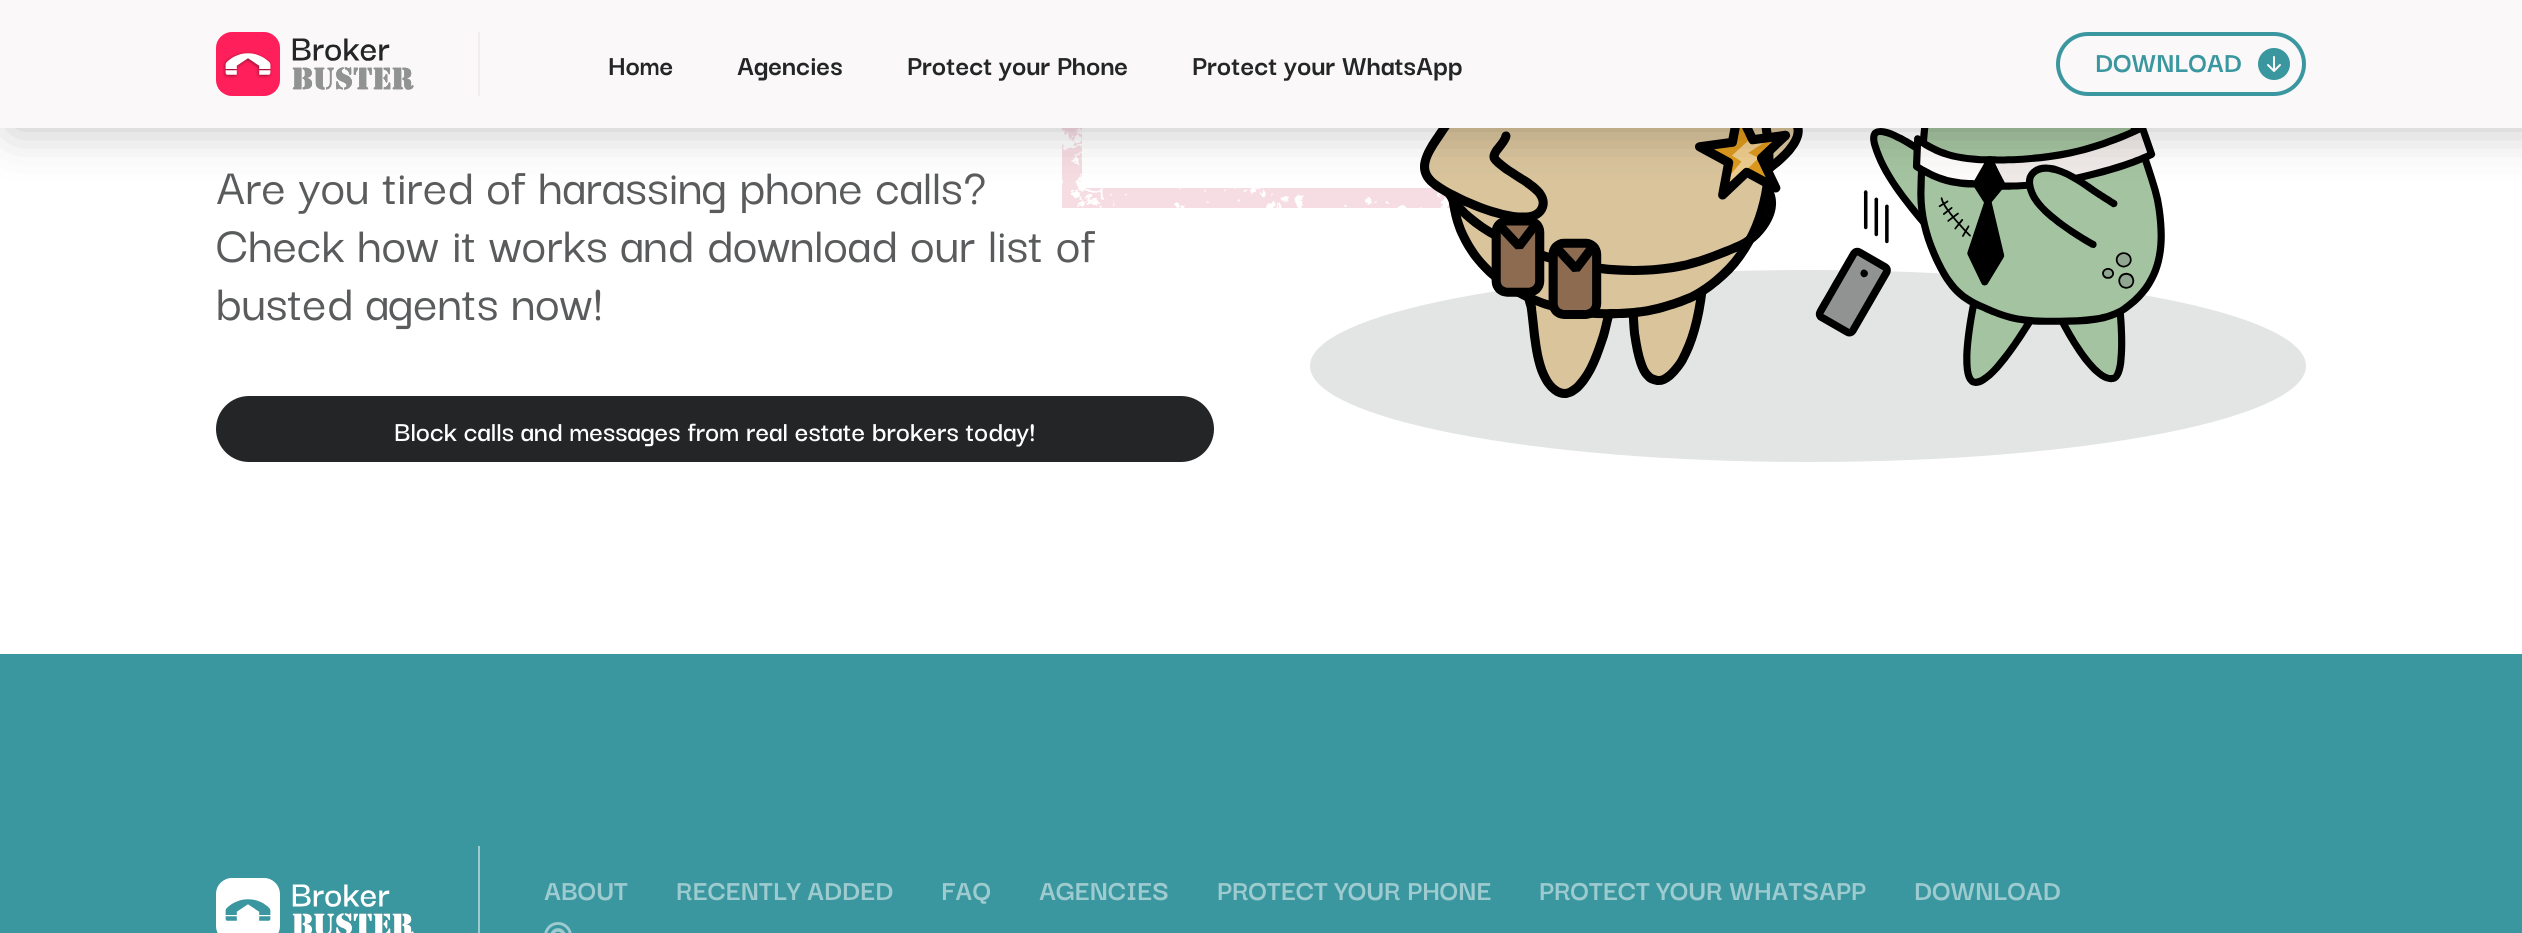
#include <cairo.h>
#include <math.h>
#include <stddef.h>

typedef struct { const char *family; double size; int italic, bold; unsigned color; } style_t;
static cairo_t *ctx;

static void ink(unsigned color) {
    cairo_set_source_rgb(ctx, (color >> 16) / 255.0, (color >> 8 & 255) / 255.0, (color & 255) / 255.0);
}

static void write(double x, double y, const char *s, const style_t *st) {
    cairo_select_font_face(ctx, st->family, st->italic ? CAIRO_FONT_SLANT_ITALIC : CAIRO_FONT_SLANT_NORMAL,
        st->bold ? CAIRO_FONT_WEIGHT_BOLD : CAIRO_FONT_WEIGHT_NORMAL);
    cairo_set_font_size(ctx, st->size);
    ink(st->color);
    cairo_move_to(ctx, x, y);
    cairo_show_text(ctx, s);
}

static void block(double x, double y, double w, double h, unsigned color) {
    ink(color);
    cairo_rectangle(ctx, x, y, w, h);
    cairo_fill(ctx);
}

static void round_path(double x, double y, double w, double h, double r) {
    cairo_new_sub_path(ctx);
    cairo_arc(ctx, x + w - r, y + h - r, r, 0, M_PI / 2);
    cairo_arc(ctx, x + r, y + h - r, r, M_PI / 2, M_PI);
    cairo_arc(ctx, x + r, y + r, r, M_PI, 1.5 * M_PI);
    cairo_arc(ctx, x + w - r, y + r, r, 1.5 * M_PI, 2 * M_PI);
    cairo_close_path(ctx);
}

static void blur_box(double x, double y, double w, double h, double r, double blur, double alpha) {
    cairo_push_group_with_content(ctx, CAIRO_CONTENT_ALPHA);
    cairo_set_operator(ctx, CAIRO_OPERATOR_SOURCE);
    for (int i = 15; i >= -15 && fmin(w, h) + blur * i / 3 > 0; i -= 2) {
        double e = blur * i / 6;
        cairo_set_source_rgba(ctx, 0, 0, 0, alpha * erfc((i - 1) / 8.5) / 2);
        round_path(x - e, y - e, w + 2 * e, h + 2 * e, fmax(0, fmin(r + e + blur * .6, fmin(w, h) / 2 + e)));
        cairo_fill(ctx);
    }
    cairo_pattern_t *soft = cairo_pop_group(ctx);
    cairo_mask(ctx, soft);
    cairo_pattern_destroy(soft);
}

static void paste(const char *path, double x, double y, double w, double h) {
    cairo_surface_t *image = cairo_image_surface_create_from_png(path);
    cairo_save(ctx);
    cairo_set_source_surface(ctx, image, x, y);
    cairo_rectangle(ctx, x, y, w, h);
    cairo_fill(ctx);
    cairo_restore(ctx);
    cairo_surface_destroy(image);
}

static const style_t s1 = {"Darker Grotesque", 30, 0, 1, 0x232526};
static const style_t s2 = {"Darker Grotesque", 30, 0, 1, 0x3b979f};
static const style_t s3 = {"Darker Grotesque Medium", 54, 0, 0, 0x5a5b5c};
static const style_t s4 = {"Darker Grotesque SemiBold", 30, 0, 0, 0xffffff};
static const style_t s5 = {"Darker Grotesque", 30, 0, 1, 0x9dcbcf};

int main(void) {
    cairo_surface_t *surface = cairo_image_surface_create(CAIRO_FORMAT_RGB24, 2522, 933);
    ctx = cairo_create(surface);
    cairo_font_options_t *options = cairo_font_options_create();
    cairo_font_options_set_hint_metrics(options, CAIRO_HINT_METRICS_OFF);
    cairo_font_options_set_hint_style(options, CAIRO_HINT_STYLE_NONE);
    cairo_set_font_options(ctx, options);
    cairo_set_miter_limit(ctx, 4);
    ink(0xffffff);
    cairo_paint(ctx);
    ink(0xe3e4e4);
    cairo_new_path(ctx);
    cairo_move_to(ctx, 1808, 270);
    cairo_curve_to(ctx, 2083, 270, 2306, 313, 2306, 366);
    cairo_curve_to(ctx, 2306, 419, 2083, 462, 1808, 462);
    cairo_curve_to(ctx, 1533, 462, 1310, 419, 1310, 366);
    cairo_curve_to(ctx, 1310, 313, 1533, 270, 1808, 270);
    cairo_close_path(ctx);
    cairo_fill(ctx);
    paste("pic5.png", 1062, 128, 388, 80);
    paste("pic3.png", 1420, 128, 383, 270);
    paste("pic4.png", 1815, 128, 350, 258);
    ink(0x000000);
    blur_box(12, 0, 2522, 128, 0, 25, 0.25);
    block(0, 0, 2522, 128, 0xfaf8f8);
    paste("pic1.png", 216, 32, 198, 64);
    block(478, 32, 2, 64, 0xf2eceb);
    write(608, 75, "Home", &s1);
    write(737, 75, "Agencies", &s1);
    write(907, 75, "Protect your Phone", &s1);
    write(1192, 75, "Protect your WhatsApp", &s1);
    round_path(2058, 34, 246, 60, 30);
    ink(0x3b979f);
    cairo_set_line_width(ctx, 4);
    cairo_stroke(ctx);
    write(2095, 72, "DOWNLOAD", &s2);
    paste("pic2.png", 2258, 48, 32, 32);
    write(216, 204, "Are you tired of harassing phone calls?", &s3);
    write(216, 262, "Check how it works and download our list of", &s3);
    write(216, 320, "busted agents now!", &s3);
    ink(0x232526);
    round_path(216, 396, 998, 66, 33);
    cairo_fill(ctx);
    write(394, 441, "Block calls and messages from real estate brokers today!", &s4);
    block(0, 654, 2522, 279, 0x3b979f);
    paste("pic6.png", 216, 878, 198, 55);
    block(478, 846, 2, 87, 0x9dcbcf);
    write(544, 900, "ABOUT", &s5);
    write(676, 900, "RECENTLY ADDED", &s5);
    write(941, 900, "FAQ", &s5);
    write(1039, 900, "AGENCIES", &s5);
    write(1217, 900, "PROTECT YOUR PHONE", &s5);
    write(1539, 900, "PROTECT YOUR WHATSAPP", &s5);
    write(1914, 900, "DOWNLOAD", &s5);
    paste("pic7.png", 544, 922, 28, 11);
    cairo_surface_write_to_png(surface, "screenshot.png");
    cairo_font_options_destroy(options);
    cairo_destroy(ctx);
    cairo_surface_destroy(surface);
    return 0;
}
